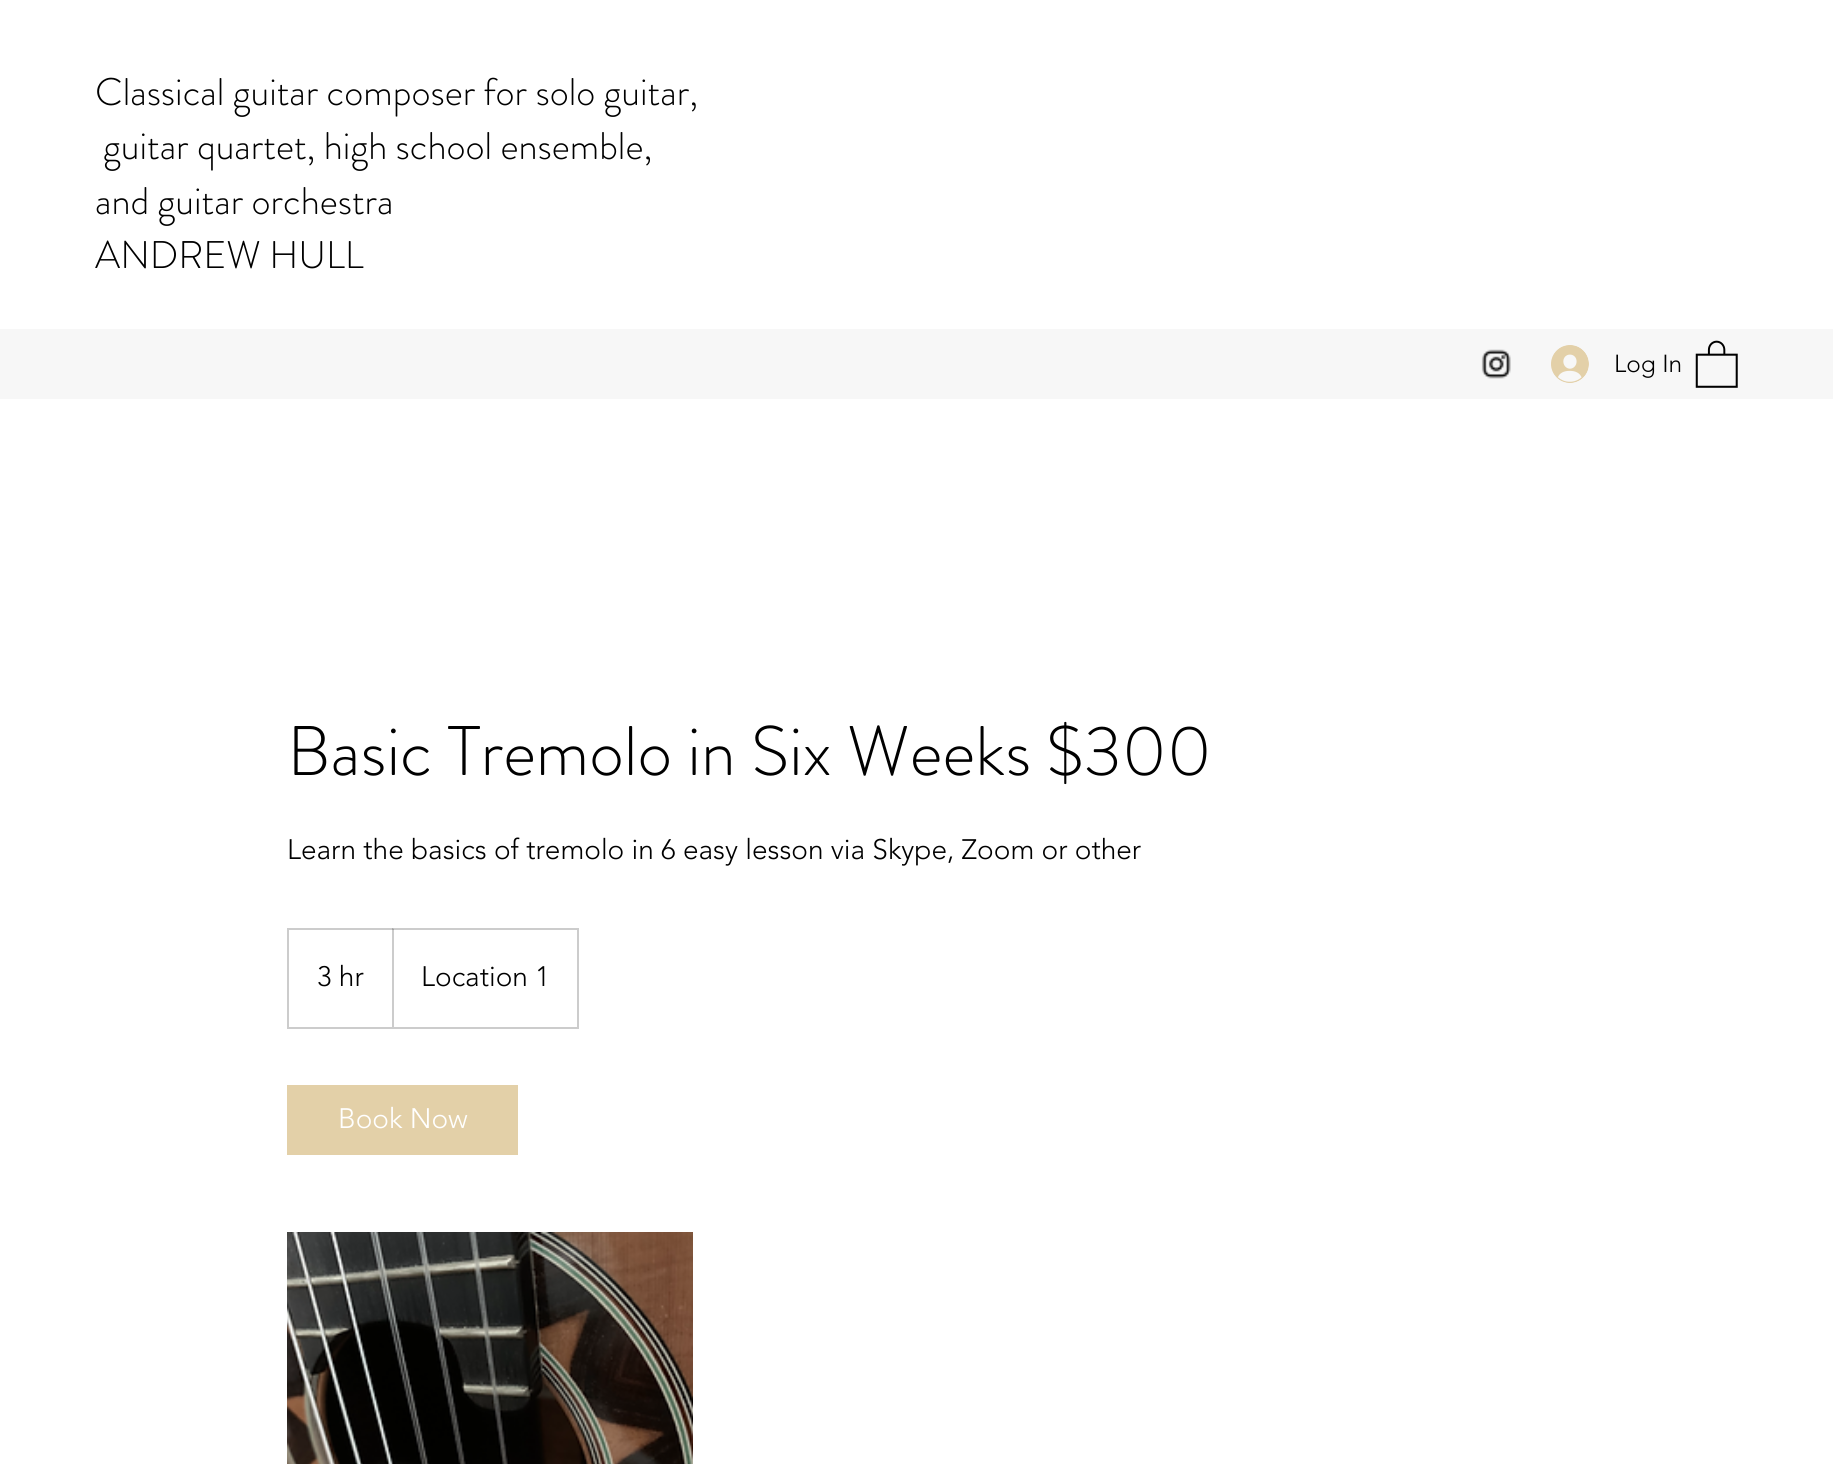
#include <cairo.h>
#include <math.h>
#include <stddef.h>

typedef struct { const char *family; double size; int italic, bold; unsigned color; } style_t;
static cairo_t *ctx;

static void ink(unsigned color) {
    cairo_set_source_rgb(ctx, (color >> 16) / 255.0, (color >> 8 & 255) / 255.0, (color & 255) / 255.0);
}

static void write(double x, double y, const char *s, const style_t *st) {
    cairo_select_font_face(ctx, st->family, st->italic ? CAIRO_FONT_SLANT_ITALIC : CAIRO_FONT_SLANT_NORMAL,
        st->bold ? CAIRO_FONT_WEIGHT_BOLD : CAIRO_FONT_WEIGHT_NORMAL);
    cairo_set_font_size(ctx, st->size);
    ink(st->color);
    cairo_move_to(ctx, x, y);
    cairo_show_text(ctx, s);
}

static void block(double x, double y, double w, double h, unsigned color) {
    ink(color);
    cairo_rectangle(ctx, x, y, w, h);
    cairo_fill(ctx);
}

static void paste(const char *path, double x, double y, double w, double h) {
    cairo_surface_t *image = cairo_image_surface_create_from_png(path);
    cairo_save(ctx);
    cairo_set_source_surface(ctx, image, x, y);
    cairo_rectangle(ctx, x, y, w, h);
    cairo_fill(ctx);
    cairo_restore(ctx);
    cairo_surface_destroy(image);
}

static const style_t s1 = {"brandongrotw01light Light", 38.5, 0, 0, 0x000000};
static const style_t s2 = {"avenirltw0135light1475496 Light", 24.5, 0, 0, 0x000000};
static const style_t s3 = {"brandongrotw01light Light", 70, 0, 0, 0x000000};
static const style_t s4 = {"avenirltw0135light1475496 Light", 28, 0, 0, 0x000000};
static const style_t s5 = {"avenirltw0135light1475496 Light", 28, 0, 0, 0xffffff};

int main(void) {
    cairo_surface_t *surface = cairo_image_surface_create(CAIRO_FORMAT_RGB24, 1833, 1464);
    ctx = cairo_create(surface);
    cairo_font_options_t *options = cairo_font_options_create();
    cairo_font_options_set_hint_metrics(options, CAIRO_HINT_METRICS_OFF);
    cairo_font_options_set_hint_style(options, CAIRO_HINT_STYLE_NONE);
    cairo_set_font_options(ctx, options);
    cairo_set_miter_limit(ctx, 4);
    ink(0xffffff);
    cairo_paint(ctx);
    write(95, 105, "Classical guitar composer for solo guitar,", &s1);
    write(103, 159, "guitar quartet, high school ensemble,", &s1);
    write(95, 214, "and guitar orchestra", &s1);
    write(95, 268, "ANDREW HULL", &s1);
    block(0, 329, 1833, 70, 0xf7f7f7);
    paste("pic1.png", 1481, 349, 30, 30);
    paste("pic2.png", 1551, 345, 38, 38);
    write(1614, 372, "Log In", &s2);
    paste("pic3.png", 1695, 340, 43, 48);
    write(287, 775, "Basic Tremolo in Six Weeks $300", &s3);
    write(287, 859, "Learn the basics of tremolo in 6 easy lesson via Skype, Zoom or other", &s4);
    cairo_rectangle(ctx, 288, 929, 290, 99);
    ink(0xcccccc);
    cairo_stroke(ctx);
    write(317, 986, "3 hr", &s4);
    cairo_set_source_rgba(ctx, 0, 0, 0, 0.2);
    cairo_new_path(ctx);
    cairo_move_to(ctx, 392, 1027);
    cairo_line_to(ctx, 392, 928);
    cairo_line_to(ctx, 394, 929);
    cairo_line_to(ctx, 394, 1027);
    cairo_close_path(ctx);
    cairo_fill(ctx);
    write(421, 986, "Location 1", &s4);
    block(287, 1085, 231, 70, 0xe3d0a8);
    write(338, 1128, "Book Now", &s5);
    paste("pic4.png", 287, 1232, 406, 232);
    cairo_surface_write_to_png(surface, "screenshot.png");
    cairo_font_options_destroy(options);
    cairo_destroy(ctx);
    cairo_surface_destroy(surface);
    return 0;
}
